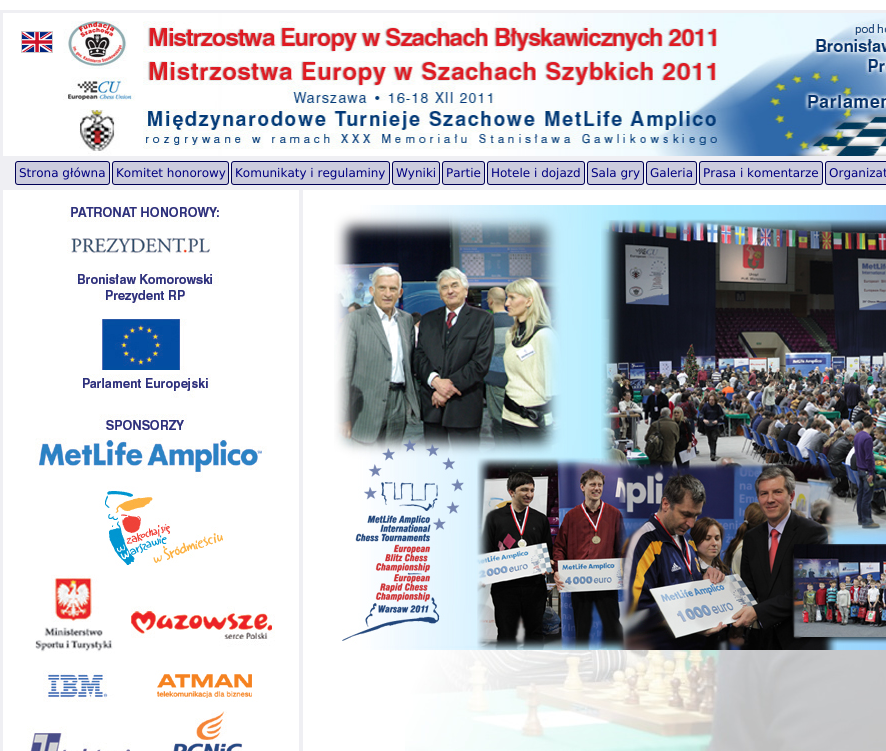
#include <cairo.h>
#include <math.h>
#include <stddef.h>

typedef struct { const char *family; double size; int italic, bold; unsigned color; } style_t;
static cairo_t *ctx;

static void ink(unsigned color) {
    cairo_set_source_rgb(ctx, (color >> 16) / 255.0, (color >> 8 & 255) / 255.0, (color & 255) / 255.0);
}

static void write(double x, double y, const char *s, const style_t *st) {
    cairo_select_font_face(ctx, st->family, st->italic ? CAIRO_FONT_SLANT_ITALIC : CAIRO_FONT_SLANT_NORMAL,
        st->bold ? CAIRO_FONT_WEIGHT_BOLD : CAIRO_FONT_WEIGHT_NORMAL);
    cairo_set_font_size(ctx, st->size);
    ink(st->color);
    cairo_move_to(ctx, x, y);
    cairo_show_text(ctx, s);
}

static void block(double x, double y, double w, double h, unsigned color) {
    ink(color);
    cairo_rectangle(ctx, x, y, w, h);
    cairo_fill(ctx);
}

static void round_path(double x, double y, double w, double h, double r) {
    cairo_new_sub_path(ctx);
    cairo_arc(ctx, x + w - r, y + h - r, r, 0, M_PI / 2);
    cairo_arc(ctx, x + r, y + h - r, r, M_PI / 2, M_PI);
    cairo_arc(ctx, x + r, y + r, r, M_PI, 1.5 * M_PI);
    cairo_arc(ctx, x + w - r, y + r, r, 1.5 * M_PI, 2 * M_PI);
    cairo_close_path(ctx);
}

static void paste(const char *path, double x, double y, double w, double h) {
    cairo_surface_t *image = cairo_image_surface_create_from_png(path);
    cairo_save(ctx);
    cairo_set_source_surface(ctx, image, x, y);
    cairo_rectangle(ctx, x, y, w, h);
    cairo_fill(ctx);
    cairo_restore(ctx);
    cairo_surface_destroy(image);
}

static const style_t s1 = {"DejaVu Sans", 12, 0, 0, 0x000080};

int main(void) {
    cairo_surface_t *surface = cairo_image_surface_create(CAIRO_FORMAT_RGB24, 886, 751);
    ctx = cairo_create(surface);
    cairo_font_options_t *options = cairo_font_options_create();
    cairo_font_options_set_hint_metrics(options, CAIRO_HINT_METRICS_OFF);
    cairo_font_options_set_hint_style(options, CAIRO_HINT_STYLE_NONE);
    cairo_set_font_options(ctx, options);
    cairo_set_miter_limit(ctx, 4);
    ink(0xffffff);
    cairo_paint(ctx);
    paste("pic1.png", 405, 650, 481, 101);
    block(299, 190, 4, 561, 0xefeff3);
    cairo_rectangle(ctx, 1.5, 11.5, 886, 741);
    cairo_set_line_width(ctx, 3);
    cairo_stroke(ctx);
    cairo_rectangle(ctx, 21.5, 31.5, 31, 21);
    ink(0xcccccc);
    cairo_set_line_width(ctx, 1);
    cairo_stroke(ctx);
    paste("pic2.png", 22, 32, 30, 20);
    paste("pic3.png", 63, 13, 823, 143);
    block(3, 156, 883, 34, 0xefeff3);
    ink(0xccccdd);
    round_path(15.5, 161.5, 94, 23, 2.5);
    cairo_fill_preserve(ctx);
    ink(0x000055);
    cairo_stroke(ctx);
    write(19, 177, "Strona główna", &s1);
    ink(0xccccdd);
    round_path(112.5, 161.5, 116, 23, 2.5);
    cairo_fill_preserve(ctx);
    ink(0x000055);
    cairo_stroke(ctx);
    write(116, 177, "Komitet honorowy", &s1);
    ink(0xccccdd);
    round_path(231.5, 161.5, 158, 23, 2.5);
    cairo_fill_preserve(ctx);
    ink(0x000055);
    cairo_stroke(ctx);
    write(235, 177, "Komunikaty i regulaminy", &s1);
    ink(0xccccdd);
    round_path(392.5, 161.5, 47, 23, 2.5);
    cairo_fill_preserve(ctx);
    ink(0x000055);
    cairo_stroke(ctx);
    write(396, 177, "Wyniki", &s1);
    ink(0xccccdd);
    round_path(442.5, 161.5, 42, 23, 2.5);
    cairo_fill_preserve(ctx);
    ink(0x000055);
    cairo_stroke(ctx);
    write(446, 177, "Partie", &s1);
    ink(0xccccdd);
    round_path(487.5, 161.5, 97, 23, 2.5);
    cairo_fill_preserve(ctx);
    ink(0x000055);
    cairo_stroke(ctx);
    write(491, 177, "Hotele i dojazd", &s1);
    ink(0xccccdd);
    round_path(587.5, 161.5, 56, 23, 2.5);
    cairo_fill_preserve(ctx);
    ink(0x000055);
    cairo_stroke(ctx);
    write(591, 177, "Sala gry", &s1);
    ink(0xccccdd);
    round_path(646.5, 161.5, 50, 23, 2.5);
    cairo_fill_preserve(ctx);
    ink(0x000055);
    cairo_stroke(ctx);
    write(650, 177, "Galeria", &s1);
    ink(0xccccdd);
    round_path(699.5, 161.5, 123, 23, 2.5);
    cairo_fill_preserve(ctx);
    ink(0x000055);
    cairo_stroke(ctx);
    write(703, 177, "Prasa i komentarze", &s1);
    ink(0xccccdd);
    round_path(825.5, 161.5, 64, 23, 2.5);
    cairo_fill_preserve(ctx);
    ink(0x000055);
    cairo_stroke(ctx);
    write(829, 177, "Organizat", &s1);
    paste("pic4.png", 27, 206, 248, 545);
    paste("pic5.png", 334, 205, 552, 445);
    cairo_surface_write_to_png(surface, "screenshot.png");
    cairo_font_options_destroy(options);
    cairo_destroy(ctx);
    cairo_surface_destroy(surface);
    return 0;
}
